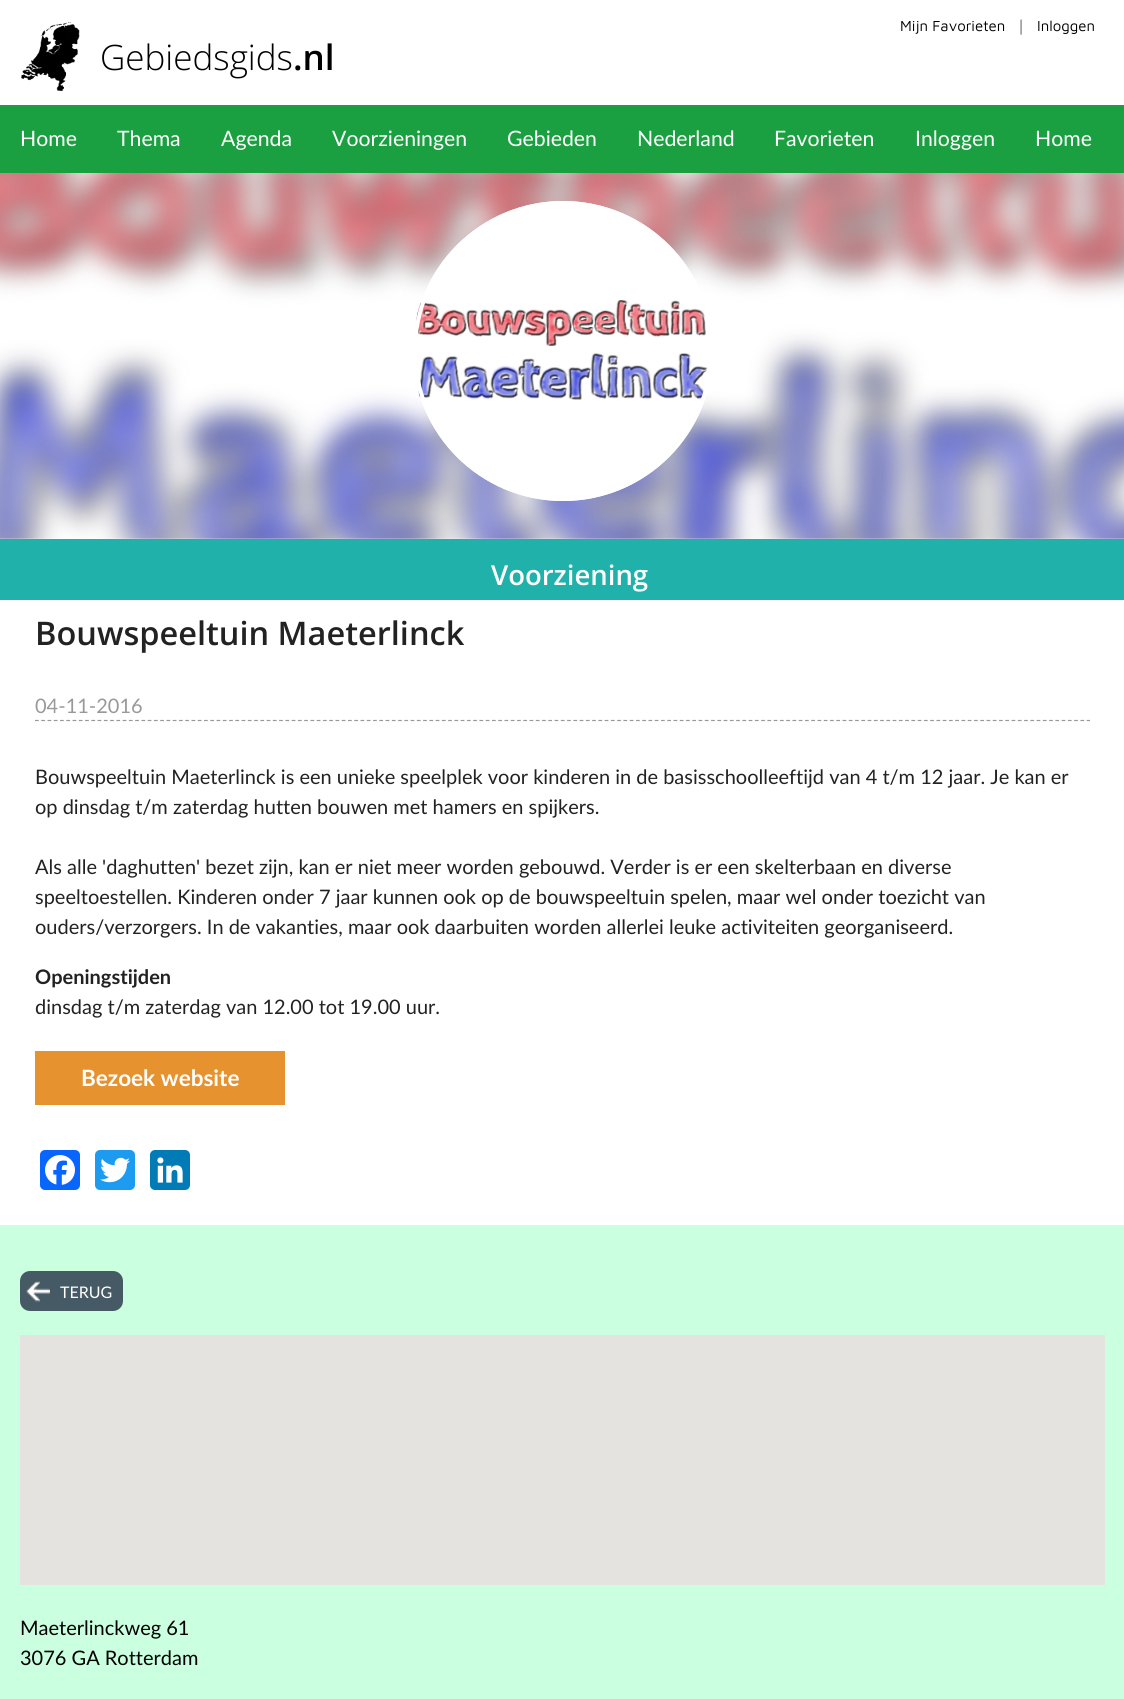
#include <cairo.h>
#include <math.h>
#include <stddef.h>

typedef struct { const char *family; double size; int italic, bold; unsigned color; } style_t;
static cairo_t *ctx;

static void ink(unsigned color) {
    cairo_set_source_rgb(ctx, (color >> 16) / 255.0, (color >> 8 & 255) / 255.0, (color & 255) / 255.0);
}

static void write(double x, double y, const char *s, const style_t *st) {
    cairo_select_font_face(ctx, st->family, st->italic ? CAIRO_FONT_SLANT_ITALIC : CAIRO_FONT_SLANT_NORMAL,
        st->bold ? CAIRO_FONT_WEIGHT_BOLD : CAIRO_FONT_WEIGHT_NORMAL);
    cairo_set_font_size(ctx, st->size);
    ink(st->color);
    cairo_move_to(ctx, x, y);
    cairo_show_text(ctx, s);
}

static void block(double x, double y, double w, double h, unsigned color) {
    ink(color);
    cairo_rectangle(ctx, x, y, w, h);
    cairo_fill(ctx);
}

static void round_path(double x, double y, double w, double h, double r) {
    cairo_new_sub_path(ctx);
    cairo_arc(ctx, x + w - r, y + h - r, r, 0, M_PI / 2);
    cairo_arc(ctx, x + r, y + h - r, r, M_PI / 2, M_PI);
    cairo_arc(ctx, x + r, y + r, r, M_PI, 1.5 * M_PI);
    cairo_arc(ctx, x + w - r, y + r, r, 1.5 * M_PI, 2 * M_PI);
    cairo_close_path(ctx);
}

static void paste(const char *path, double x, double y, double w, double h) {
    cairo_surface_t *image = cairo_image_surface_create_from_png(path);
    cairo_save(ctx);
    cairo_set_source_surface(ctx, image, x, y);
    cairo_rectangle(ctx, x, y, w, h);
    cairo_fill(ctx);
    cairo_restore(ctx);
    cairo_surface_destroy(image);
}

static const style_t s1 = {"Maven Pro", 15, 0, 0, 0x000000};
static const style_t s2 = {"Open Sans Light", 15, 0, 0, 0x000000};
static const style_t s3 = {"Open Sans Light", 35, 0, 0, 0x000000};
static const style_t s4 = {"Open Sans SemiBold", 35, 0, 0, 0x000000};
static const style_t s5 = {"Lato", 21.25, 0, 0, 0xffffff};
static const style_t s6 = {"Open Sans SemiBold", 32.5, 0, 0, 0x222222};
static const style_t s7 = {"Lato", 20, 0, 0, 0x999999};
static const style_t s8 = {"Lato", 20, 0, 0, 0x222222};
static const style_t s9 = {"Lato", 20, 0, 1, 0x222222};
static const style_t s10 = {"Lato", 22.5, 0, 1, 0xffffff};
static const style_t s11 = {"Lato", 16, 0, 0, 0xffffff};
static const style_t s12 = {"Lato", 20, 0, 0, 0x000000};
static const style_t s13 = {"Open Sans SemiBold", 27.5, 0, 0, 0xffffff};

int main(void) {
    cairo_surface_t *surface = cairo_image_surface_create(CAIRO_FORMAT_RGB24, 1124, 1699);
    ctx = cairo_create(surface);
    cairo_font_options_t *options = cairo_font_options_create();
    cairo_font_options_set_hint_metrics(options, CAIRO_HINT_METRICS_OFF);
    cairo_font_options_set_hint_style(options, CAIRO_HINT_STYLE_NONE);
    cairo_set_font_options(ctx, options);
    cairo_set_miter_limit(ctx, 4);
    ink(0xffffff);
    cairo_paint(ctx);
    write(900, 31, "Mijn Favorieten", &s1);
    write(1017, 31, "|", &s2);
    write(1037, 31, "Inloggen", &s1);
    paste("pic1.png", 21, 22, 59, 69);
    write(100, 70, "Gebiedsgids", &s3);
    write(293, 70, ".nl", &s4);
    block(0, 105, 1124, 68, 0x1aa041);
    write(20, 146, "Home", &s5);
    write(117, 146, "Thema", &s5);
    write(221, 146, "Agenda", &s5);
    write(332, 146, "Voorzieningen", &s5);
    write(507, 146, "Gebieden", &s5);
    write(637, 146, "Nederland", &s5);
    write(774, 146, "Favorieten", &s5);
    write(915, 146, "Inloggen", &s5);
    write(1035, 146, "Home", &s5);
    write(35, 645, "Bouwspeeltuin Maeterlinck", &s6);
    cairo_new_path(ctx);
    cairo_move_to(ctx, 35, 720.5);
    cairo_line_to(ctx, 1090, 720.5);
    ink(0x999999);
    cairo_set_line_width(ctx, 1.2);
    cairo_set_dash(ctx, (double[]){3.75, 2.51}, 2, 0);
    cairo_stroke(ctx);
    write(35, 713, "04-11-2016", &s7);
    write(35, 784, "Bouwspeeltuin Maeterlinck is een unieke speelplek voor kinderen in de basisschoolleeftijd van 4 t/m 12 jaar. Je kan er", &s8);
    write(35, 814, "op dinsdag t/m zaterdag hutten bouwen met hamers en spijkers.", &s8);
    write(35, 874, "Als alle 'daghutten' bezet zijn, kan er niet meer worden gebouwd. Verder is er een skelterbaan en diverse", &s8);
    write(35, 904, "speeltoestellen. Kinderen onder 7 jaar kunnen ook op de bouwspeeltuin spelen, maar wel onder toezicht van", &s8);
    write(35, 934, "ouders/verzorgers. In de vakanties, maar ook daarbuiten worden allerlei leuke activiteiten georganiseerd.", &s8);
    write(35, 984, "Openingstijden", &s9);
    write(35, 1014, "dinsdag t/m zaterdag van 12.00 tot 19.00 uur.", &s8);
    block(35, 1051, 250, 54, 0xe5922f);
    write(81, 1086, "Bezoek website", &s10);
    ink(0x0866ff);
    round_path(40, 1150, 40, 40, 5);
    cairo_fill(ctx);
    paste("pic2.png", 45, 1155, 30, 30);
    ink(0x1d9bf0);
    round_path(95, 1150, 40, 40, 5);
    cairo_fill(ctx);
    paste("pic3.png", 100, 1157, 30, 26);
    ink(0x007bb5);
    round_path(150, 1150, 40, 40, 5);
    cairo_fill(ctx);
    paste("pic4.png", 157, 1157, 26, 26);
    block(0, 1225, 1124, 474, 0xcaffe0);
    ink(0x455a64);
    round_path(20, 1271, 103, 40, 10);
    cairo_fill(ctx);
    paste("pic5.png", 26, 1281, 24, 21);
    write(60, 1298, "TERUG", &s11);
    block(20, 1335, 1085, 250, 0xe5e3df);
    write(20, 1635, "Maeterlinckweg 61", &s12);
    write(20, 1665, "3076 GA Rotterdam", &s12);
    block(0, 539, 1124, 61, 0x20b2aa);
    write(491, 585, "Voorziening", &s13);
    paste("pic6.png", 0, 173, 1124, 366);
    cairo_arc(ctx, 563, 351, 150, 0, 2 * M_PI);
    cairo_fill(ctx);
    paste("pic7.png", 416, 300, 292, 100);
    cairo_arc(ctx, 563, 351, 148, 0, 2 * M_PI);
    cairo_set_line_width(ctx, 4);
    cairo_set_dash(ctx, NULL, 0, 0);
    cairo_stroke(ctx);
    cairo_surface_write_to_png(surface, "screenshot.png");
    cairo_font_options_destroy(options);
    cairo_destroy(ctx);
    cairo_surface_destroy(surface);
    return 0;
}
